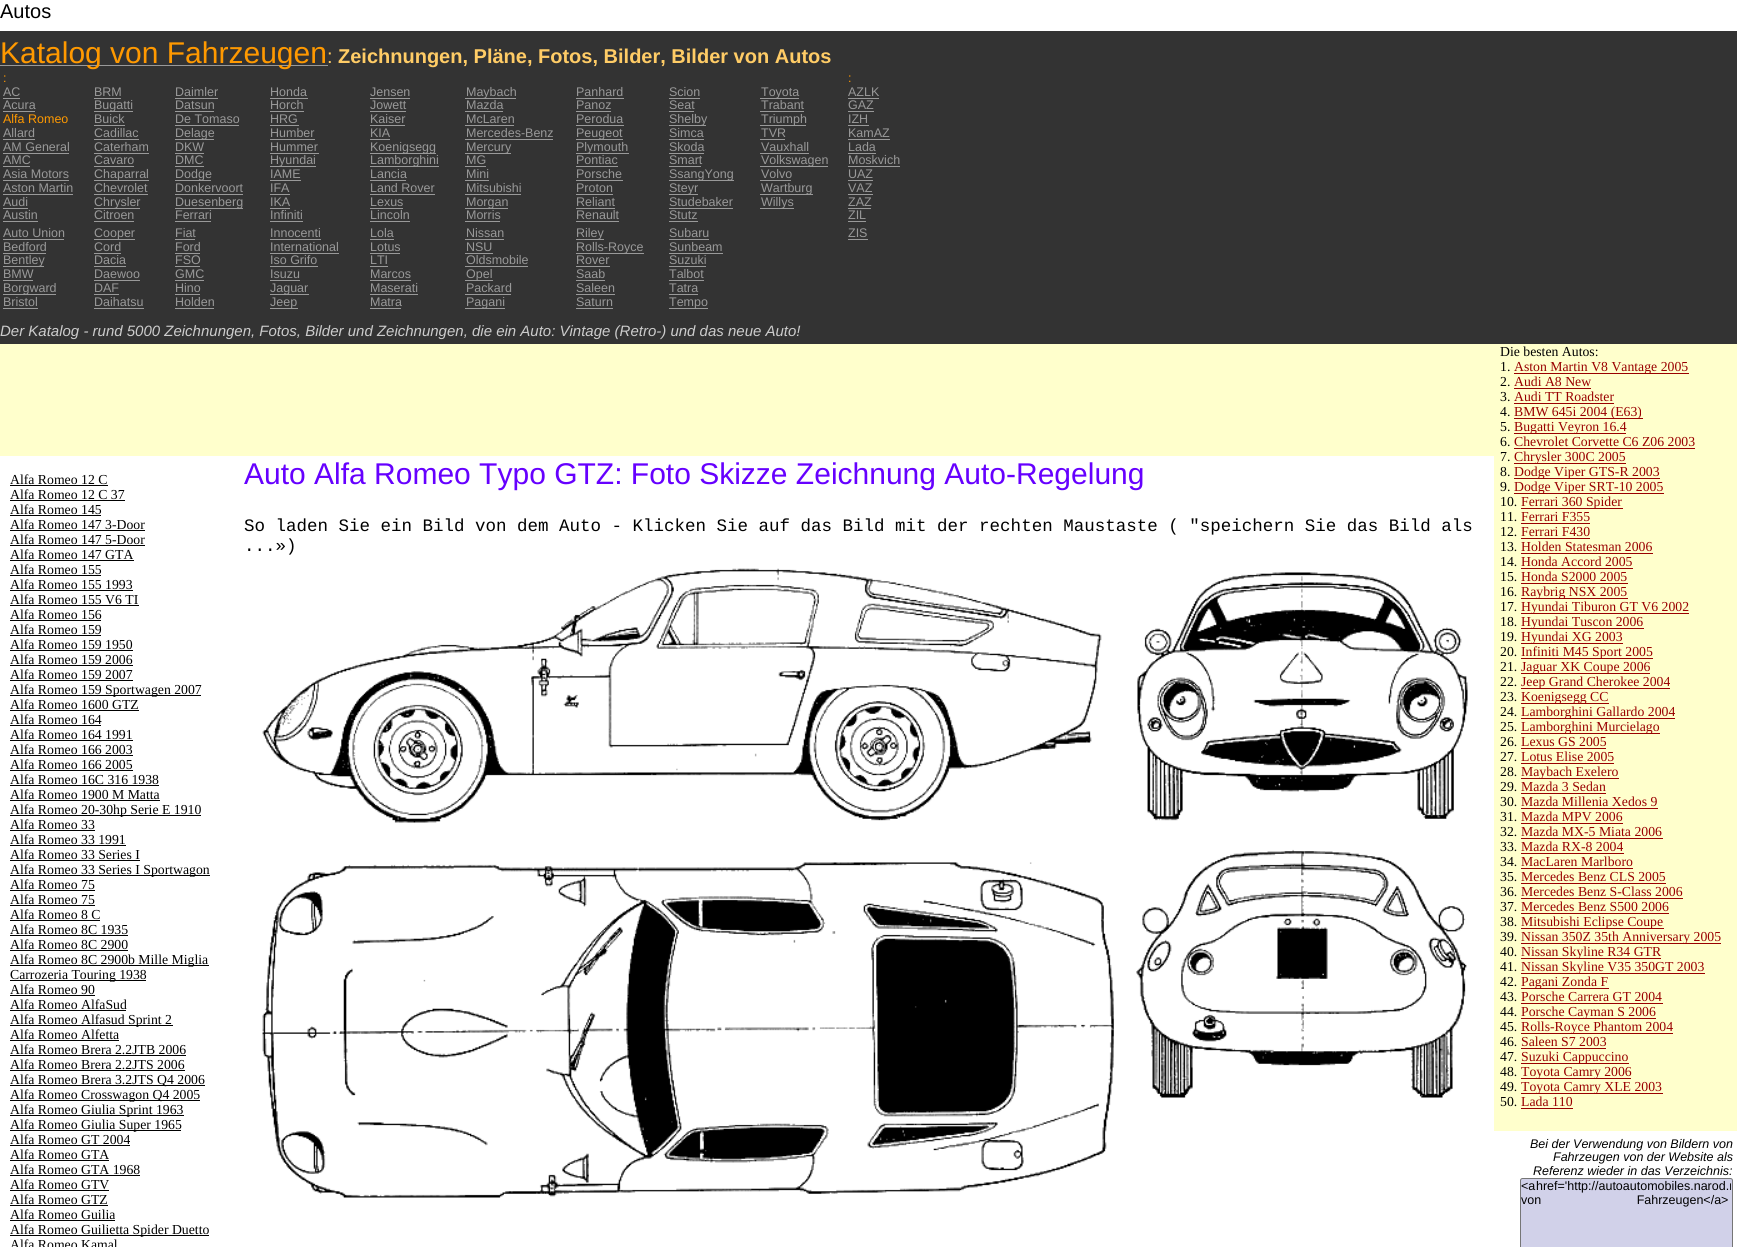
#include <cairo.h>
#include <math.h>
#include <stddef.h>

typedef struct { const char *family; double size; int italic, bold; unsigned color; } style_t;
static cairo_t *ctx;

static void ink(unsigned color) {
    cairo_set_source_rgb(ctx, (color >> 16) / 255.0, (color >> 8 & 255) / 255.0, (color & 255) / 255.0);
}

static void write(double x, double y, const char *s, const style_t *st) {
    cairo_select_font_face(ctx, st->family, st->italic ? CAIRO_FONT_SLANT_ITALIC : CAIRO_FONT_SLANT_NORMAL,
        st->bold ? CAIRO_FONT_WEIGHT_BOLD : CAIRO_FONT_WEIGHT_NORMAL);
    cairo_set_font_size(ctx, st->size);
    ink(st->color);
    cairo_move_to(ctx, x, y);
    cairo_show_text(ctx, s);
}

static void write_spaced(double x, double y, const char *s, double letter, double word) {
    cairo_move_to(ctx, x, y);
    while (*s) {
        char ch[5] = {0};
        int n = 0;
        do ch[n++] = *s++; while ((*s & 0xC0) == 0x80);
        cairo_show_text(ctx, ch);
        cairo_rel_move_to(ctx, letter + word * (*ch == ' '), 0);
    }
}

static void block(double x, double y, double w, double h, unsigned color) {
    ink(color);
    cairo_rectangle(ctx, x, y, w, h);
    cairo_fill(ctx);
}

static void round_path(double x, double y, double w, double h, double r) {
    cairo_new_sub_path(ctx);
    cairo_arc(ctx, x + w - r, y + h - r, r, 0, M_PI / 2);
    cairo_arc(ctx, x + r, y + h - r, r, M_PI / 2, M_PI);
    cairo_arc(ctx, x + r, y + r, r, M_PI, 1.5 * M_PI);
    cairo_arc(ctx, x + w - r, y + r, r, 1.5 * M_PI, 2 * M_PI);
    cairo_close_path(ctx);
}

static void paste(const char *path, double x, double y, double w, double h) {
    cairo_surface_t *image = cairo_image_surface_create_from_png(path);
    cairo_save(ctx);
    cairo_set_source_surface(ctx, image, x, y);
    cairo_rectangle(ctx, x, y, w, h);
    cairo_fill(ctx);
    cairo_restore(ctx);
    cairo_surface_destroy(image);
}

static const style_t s1 = {"Liberation Sans", 20, 0, 0, 0x000000};
static const style_t s2 = {"Liberation Sans", 30, 0, 0, 0xff9900};
static const style_t s3 = {"Liberation Sans", 20, 0, 0, 0xffcc66};
static const style_t s4 = {"Liberation Sans", 20, 0, 1, 0xffcc66};
static const style_t s5 = {"Liberation Sans", 12.5, 0, 0, 0xff9900};
static const style_t s6 = {"Liberation Sans", 12.5, 0, 0, 0x999999};
static const style_t s7 = {"Liberation Sans", 15, 1, 0, 0xcccccc};
static const style_t s8 = {"Liberation Serif", 13.75, 0, 0, 0x000000};
static const style_t s9 = {"Liberation Sans", 30, 0, 0, 0x6600ff};
static const style_t s10 = {"Liberation Mono", 17.5, 0, 0, 0x000000};
static const style_t s11 = {"Liberation Serif", 13.75, 0, 0, 0x990000};
static const style_t s12 = {"Liberation Sans", 12.5, 1, 0, 0x000000};
static const style_t s13 = {"Liberation Sans", 12.5, 0, 0, 0x000000};

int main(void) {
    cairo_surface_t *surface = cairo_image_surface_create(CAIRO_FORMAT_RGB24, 1737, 1247);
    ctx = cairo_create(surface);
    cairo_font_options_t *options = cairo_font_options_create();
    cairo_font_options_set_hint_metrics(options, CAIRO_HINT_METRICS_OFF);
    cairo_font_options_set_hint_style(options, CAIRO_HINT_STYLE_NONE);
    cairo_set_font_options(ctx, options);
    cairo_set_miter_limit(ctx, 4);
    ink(0xffffff);
    cairo_paint(ctx);
    write(0, 18, "Autos", &s1);
    block(0, 31, 1737, 313, 0x333333);
    block(0, 65, 328, 1, 0x999999);
    write(0, 63, "Katalog von Fahrzeugen", &s2);
    write(327, 63, ":", &s3);
    write(338, 63, "Zeichnungen, Pläne, Fotos, Bilder, Bilder von Autos", &s4);
    write(3, 82, ":", &s5);
    write(848, 82, ":", &s5);
    write(3, 96, "AC", &s6);
    block(3, 98, 17, 1, 0x999999);
    write(94, 96, "BRM", &s6);
    block(94, 98, 27, 1, 0x999999);
    write(175, 96, "Daimler", &s6);
    block(175, 98, 43, 1, 0x999999);
    write(270, 96, "Honda", &s6);
    block(270, 98, 38, 1, 0x999999);
    write(370, 96, "Jensen", &s6);
    block(370, 98, 40, 1, 0x999999);
    block(465, 98, 51, 1, 0x999999);
    write(466, 96, "Maybach", &s6);
    write(576, 96, "Panhard", &s6);
    block(576, 98, 48, 1, 0x999999);
    write(669, 96, "Scion", &s6);
    block(669, 98, 31, 1, 0x999999);
    block(760, 98, 39, 1, 0x999999);
    write(761, 96, "Toyota", &s6);
    write(848, 96, "AZLK", &s6);
    block(848, 98, 31, 1, 0x999999);
    write(3, 109, "Acura", &s6);
    block(3, 111, 32, 1, 0x999999);
    block(94, 111, 39, 1, 0x999999);
    write(94, 109, "Bugatti", &s6);
    write(175, 109, "Datsun", &s6);
    block(175, 111, 39, 1, 0x999999);
    write(270, 109, "Horch", &s6);
    block(270, 111, 34, 1, 0x999999);
    write(370, 109, "Jowett", &s6);
    block(370, 111, 36, 1, 0x999999);
    write(466, 109, "Mazda", &s6);
    block(465, 111, 38, 1, 0x999999);
    write(576, 109, "Panoz", &s6);
    block(576, 111, 35, 1, 0x999999);
    write(669, 109, "Seat", &s6);
    block(669, 111, 25, 1, 0x999999);
    write(761, 109, "Trabant", &s6);
    block(760, 111, 44, 1, 0x999999);
    write(848, 109, "GAZ", &s6);
    block(848, 111, 26, 1, 0x999999);
    write(3, 123, "Alfa Romeo", &s5);
    write(94, 123, "Buick", &s6);
    block(94, 125, 31, 1, 0x999999);
    write(175, 123, "De Tomaso", &s6);
    block(175, 125, 64, 1, 0x999999);
    write(270, 123, "HRG", &s6);
    block(270, 125, 29, 1, 0x999999);
    write(370, 123, "Kaiser", &s6);
    block(370, 125, 35, 1, 0x999999);
    write(466, 123, "McLaren", &s6);
    block(465, 125, 49, 1, 0x999999);
    write(576, 123, "Perodua", &s6);
    block(576, 125, 48, 1, 0x999999);
    block(669, 125, 37, 1, 0x999999);
    write(669, 123, "Shelby", &s6);
    block(760, 125, 46, 1, 0x999999);
    write(761, 123, "Triumph", &s6);
    write(848, 123, "IZH", &s6);
    block(848, 125, 21, 1, 0x999999);
    write(3, 137, "Allard", &s6);
    block(3, 139, 32, 1, 0x999999);
    write(94, 137, "Cadillac", &s6);
    block(94, 139, 45, 1, 0x999999);
    block(175, 139, 39, 1, 0x999999);
    write(175, 137, "Delage", &s6);
    write(270, 137, "Humber", &s6);
    block(270, 139, 45, 1, 0x999999);
    write(370, 137, "KIA", &s6);
    block(370, 139, 20, 1, 0x999999);
    write(466, 137, "Mercedes-Benz", &s6);
    block(465, 139, 88, 1, 0x999999);
    block(576, 139, 47, 1, 0x999999);
    write(576, 137, "Peugeot", &s6);
    write(669, 137, "Simca", &s6);
    block(669, 139, 35, 1, 0x999999);
    write(761, 137, "TVR", &s6);
    block(760, 139, 25, 1, 0x999999);
    write(848, 137, "KamAZ", &s6);
    block(848, 139, 42, 1, 0x999999);
    write(3, 151, "AM General", &s6);
    block(3, 153, 66, 1, 0x999999);
    write(94, 151, "Caterham", &s6);
    block(94, 153, 55, 1, 0x999999);
    write(175, 151, "DKW", &s6);
    block(175, 153, 29, 1, 0x999999);
    write(270, 151, "Hummer", &s6);
    block(270, 153, 49, 1, 0x999999);
    block(370, 153, 66, 1, 0x999999);
    write(370, 151, "Koenigsegg", &s6);
    block(465, 153, 46, 1, 0x999999);
    write(466, 151, "Mercury", &s6);
    block(576, 153, 53, 1, 0x999999);
    write(576, 151, "Plymouth", &s6);
    write(669, 151, "Skoda", &s6);
    block(669, 153, 35, 1, 0x999999);
    write(761, 151, "Vauxhall", &s6);
    block(760, 153, 49, 1, 0x999999);
    write(848, 151, "Lada", &s6);
    block(848, 153, 28, 1, 0x999999);
    write(3, 164, "AMC", &s6);
    block(3, 166, 27, 1, 0x999999);
    write(94, 164, "Cavaro", &s6);
    block(94, 166, 40, 1, 0x999999);
    write(175, 164, "DMC", &s6);
    block(175, 166, 29, 1, 0x999999);
    block(270, 166, 46, 1, 0x999999);
    write(270, 164, "Hyundai", &s6);
    block(370, 166, 69, 1, 0x999999);
    write(370, 164, "Lamborghini", &s6);
    write(466, 164, "MG", &s6);
    block(465, 166, 21, 1, 0x999999);
    write(576, 164, "Pontiac", &s6);
    block(576, 166, 42, 1, 0x999999);
    write(669, 164, "Smart", &s6);
    block(669, 166, 32, 1, 0x999999);
    block(760, 166, 68, 1, 0x999999);
    write(761, 164, "Volkswagen", &s6);
    write(848, 164, "Moskvich", &s6);
    block(848, 166, 52, 1, 0x999999);
    write(3, 178, "Asia Motors", &s6);
    block(3, 180, 66, 1, 0x999999);
    block(94, 180, 55, 1, 0x999999);
    write(94, 178, "Chaparral", &s6);
    block(175, 180, 36, 1, 0x999999);
    write(175, 178, "Dodge", &s6);
    write(270, 178, "IAME", &s6);
    block(270, 180, 31, 1, 0x999999);
    write(370, 178, "Lancia", &s6);
    block(370, 180, 36, 1, 0x999999);
    write(466, 178, "Mini", &s6);
    block(465, 180, 24, 1, 0x999999);
    write(576, 178, "Porsche", &s6);
    block(576, 180, 47, 1, 0x999999);
    block(669, 180, 65, 1, 0x999999);
    write(669, 178, "SsangYong", &s6);
    write(761, 178, "Volvo", &s6);
    block(760, 180, 31, 1, 0x999999);
    write(848, 178, "UAZ", &s6);
    block(848, 180, 25, 1, 0x999999);
    write(3, 192, "Aston Martin", &s6);
    block(3, 194, 70, 1, 0x999999);
    write(94, 192, "Chevrolet", &s6);
    block(94, 194, 54, 1, 0x999999);
    write(175, 192, "Donkervoort", &s6);
    block(175, 194, 68, 1, 0x999999);
    write(270, 192, "IFA", &s6);
    block(270, 194, 20, 1, 0x999999);
    write(370, 192, "Land Rover", &s6);
    block(370, 194, 65, 1, 0x999999);
    write(466, 192, "Mitsubishi", &s6);
    block(465, 194, 56, 1, 0x999999);
    write(576, 192, "Proton", &s6);
    block(576, 194, 37, 1, 0x999999);
    block(669, 194, 29, 1, 0x999999);
    write(669, 192, "Steyr", &s6);
    block(760, 194, 53, 1, 0x999999);
    write(761, 192, "Wartburg", &s6);
    write(848, 192, "VAZ", &s6);
    block(848, 194, 25, 1, 0x999999);
    write(3, 206, "Audi", &s6);
    block(3, 208, 25, 1, 0x999999);
    block(94, 208, 46, 1, 0x999999);
    write(94, 206, "Chrysler", &s6);
    block(175, 208, 68, 1, 0x999999);
    write(175, 206, "Duesenberg", &s6);
    write(270, 206, "IKA", &s6);
    block(270, 208, 20, 1, 0x999999);
    write(370, 206, "Lexus", &s6);
    block(370, 208, 33, 1, 0x999999);
    block(465, 208, 43, 1, 0x999999);
    write(466, 206, "Morgan", &s6);
    write(576, 206, "Reliant", &s6);
    block(576, 208, 39, 1, 0x999999);
    write(669, 206, "Studebaker", &s6);
    block(669, 208, 64, 1, 0x999999);
    block(760, 208, 34, 1, 0x999999);
    write(761, 206, "Willys", &s6);
    write(848, 206, "ZAZ", &s6);
    block(848, 208, 23, 1, 0x999999);
    write(3, 219, "Austin", &s6);
    block(3, 221, 35, 1, 0x999999);
    write(94, 219, "Citroen", &s6);
    block(94, 221, 40, 1, 0x999999);
    write(175, 219, "Ferrari", &s6);
    block(175, 221, 36, 1, 0x999999);
    write(270, 219, "Infiniti", &s6);
    block(270, 221, 33, 1, 0x999999);
    write(370, 219, "Lincoln", &s6);
    block(370, 221, 40, 1, 0x999999);
    write(466, 219, "Morris", &s6);
    block(465, 221, 35, 1, 0x999999);
    write(576, 219, "Renault", &s6);
    block(576, 221, 43, 1, 0x999999);
    write(669, 219, "Stutz", &s6);
    block(669, 221, 29, 1, 0x999999);
    write(848, 219, "ZIL", &s6);
    block(848, 221, 18, 1, 0x999999);
    write(3, 237, "Auto Union", &s6);
    block(3, 239, 61, 1, 0x999999);
    block(94, 239, 41, 1, 0x999999);
    write(94, 237, "Cooper", &s6);
    write(175, 237, "Fiat", &s6);
    block(175, 239, 20, 1, 0x999999);
    write(270, 237, "Innocenti", &s6);
    block(270, 239, 51, 1, 0x999999);
    write(370, 237, "Lola", &s6);
    block(370, 239, 24, 1, 0x999999);
    write(466, 237, "Nissan", &s6);
    block(465, 239, 39, 1, 0x999999);
    block(576, 239, 28, 1, 0x999999);
    write(576, 237, "Riley", &s6);
    write(669, 237, "Subaru", &s6);
    block(669, 239, 40, 1, 0x999999);
    write(848, 237, "ZIS", &s6);
    block(848, 239, 20, 1, 0x999999);
    write(3, 251, "Bedford", &s6);
    block(3, 253, 43, 1, 0x999999);
    write(94, 251, "Cord", &s6);
    block(94, 253, 27, 1, 0x999999);
    write(175, 251, "Ford", &s6);
    block(175, 253, 25, 1, 0x999999);
    write(270, 251, "International", &s6);
    block(270, 253, 69, 1, 0x999999);
    write(370, 251, "Lotus", &s6);
    block(370, 253, 30, 1, 0x999999);
    write(466, 251, "NSU", &s6);
    block(465, 253, 28, 1, 0x999999);
    block(576, 253, 68, 1, 0x999999);
    write(576, 251, "Rolls-Royce", &s6);
    write(669, 251, "Sunbeam", &s6);
    block(669, 253, 54, 1, 0x999999);
    block(3, 266, 41, 1, 0x999999);
    write(3, 264, "Bentley", &s6);
    write(94, 264, "Dacia", &s6);
    block(94, 266, 32, 1, 0x999999);
    write(175, 264, "FSO", &s6);
    block(175, 266, 25, 1, 0x999999);
    write(270, 264, "Iso Grifo", &s6);
    block(270, 266, 48, 1, 0x999999);
    write(370, 264, "LTI", &s6);
    block(370, 266, 18, 1, 0x999999);
    write(466, 264, "Oldsmobile", &s6);
    block(465, 266, 63, 1, 0x999999);
    write(576, 264, "Rover", &s6);
    block(576, 266, 34, 1, 0x999999);
    write(669, 264, "Suzuki", &s6);
    block(669, 266, 37, 1, 0x999999);
    write(3, 278, "BMW", &s6);
    block(3, 280, 30, 1, 0x999999);
    write(94, 278, "Daewoo", &s6);
    block(94, 280, 46, 1, 0x999999);
    write(175, 278, "GMC", &s6);
    block(175, 280, 29, 1, 0x999999);
    write(270, 278, "Isuzu", &s6);
    block(270, 280, 30, 1, 0x999999);
    write(370, 278, "Marcos", &s6);
    block(370, 280, 41, 1, 0x999999);
    block(465, 280, 28, 1, 0x999999);
    write(466, 278, "Opel", &s6);
    write(576, 278, "Saab", &s6);
    block(576, 280, 29, 1, 0x999999);
    write(669, 278, "Talbot", &s6);
    block(669, 280, 35, 1, 0x999999);
    block(3, 294, 53, 1, 0x999999);
    write(3, 292, "Borgward", &s6);
    write(94, 292, "DAF", &s6);
    block(94, 294, 25, 1, 0x999999);
    write(175, 292, "Hino", &s6);
    block(175, 294, 25, 1, 0x999999);
    block(270, 294, 39, 1, 0x999999);
    write(270, 292, "Jaguar", &s6);
    write(370, 292, "Maserati", &s6);
    block(370, 294, 48, 1, 0x999999);
    write(466, 292, "Packard", &s6);
    block(465, 294, 46, 1, 0x999999);
    write(576, 292, "Saleen", &s6);
    block(576, 294, 39, 1, 0x999999);
    write(669, 292, "Tatra", &s6);
    block(669, 294, 29, 1, 0x999999);
    write(3, 306, "Bristol", &s6);
    block(3, 308, 35, 1, 0x999999);
    write(94, 306, "Daihatsu", &s6);
    block(94, 308, 50, 1, 0x999999);
    write(175, 306, "Holden", &s6);
    block(175, 308, 39, 1, 0x999999);
    block(270, 308, 28, 1, 0x999999);
    write(270, 306, "Jeep", &s6);
    write(370, 306, "Matra", &s6);
    block(370, 308, 31, 1, 0x999999);
    block(465, 308, 40, 1, 0x999999);
    write(466, 306, "Pagani", &s6);
    write(576, 306, "Saturn", &s6);
    block(576, 308, 37, 1, 0x999999);
    block(669, 308, 39, 1, 0x999999);
    write(669, 306, "Tempo", &s6);
    write(0, 336, "Der Katalog - rund 5000 Zeichnungen, Fotos, Bilder und Zeichnungen, die ein Auto: Vintage (Retro-) und das neue Auto!", &s7);
    write(10, 484, "Alfa Romeo 12 C", &s8);
    block(10, 485, 98, 1, 0x000000);
    write(10, 499, "Alfa Romeo 12 C 37", &s8);
    block(10, 500, 115, 1, 0x000000);
    write(10, 514, "Alfa Romeo 145", &s8);
    block(10, 515, 91, 1, 0x000000);
    write(10, 529, "Alfa Romeo 147 3-Door", &s8);
    block(10, 530, 135, 1, 0x000000);
    write(10, 544, "Alfa Romeo 147 5-Door", &s8);
    block(10, 545, 135, 1, 0x000000);
    write(10, 559, "Alfa Romeo 147 GTA", &s8);
    block(10, 560, 124, 1, 0x000000);
    write(10, 574, "Alfa Romeo 155", &s8);
    block(10, 575, 91, 1, 0x000000);
    write(10, 589, "Alfa Romeo 155 1993", &s8);
    block(10, 590, 123, 1, 0x000000);
    write(10, 604, "Alfa Romeo 155 V6 TI", &s8);
    block(10, 605, 129, 1, 0x000000);
    write(10, 619, "Alfa Romeo 156", &s8);
    block(10, 620, 91, 1, 0x000000);
    write(10, 634, "Alfa Romeo 159", &s8);
    block(10, 635, 91, 1, 0x000000);
    write(10, 649, "Alfa Romeo 159 1950", &s8);
    block(10, 650, 123, 1, 0x000000);
    write(10, 664, "Alfa Romeo 159 2006", &s8);
    block(10, 665, 123, 1, 0x000000);
    write(10, 679, "Alfa Romeo 159 2007", &s8);
    block(10, 680, 123, 1, 0x000000);
    block(10, 695, 191, 1, 0x000000);
    write(10, 694, "Alfa Romeo 159 Sportwagen 2007", &s8);
    write(10, 709, "Alfa Romeo 1600 GTZ", &s8);
    block(10, 710, 129, 1, 0x000000);
    write(10, 724, "Alfa Romeo 164", &s8);
    block(10, 725, 91, 1, 0x000000);
    write(10, 739, "Alfa Romeo 164 1991", &s8);
    block(10, 740, 123, 1, 0x000000);
    write(10, 754, "Alfa Romeo 166 2003", &s8);
    block(10, 755, 123, 1, 0x000000);
    write(10, 769, "Alfa Romeo 166 2005", &s8);
    block(10, 770, 123, 1, 0x000000);
    write(10, 784, "Alfa Romeo 16C 316 1938", &s8);
    block(10, 785, 149, 1, 0x000000);
    write(10, 799, "Alfa Romeo 1900 M Matta", &s8);
    block(10, 800, 150, 1, 0x000000);
    block(10, 815, 191, 1, 0x000000);
    write(10, 814, "Alfa Romeo 20-30hp Serie E 1910", &s8);
    write(10, 829, "Alfa Romeo 33", &s8);
    block(10, 830, 85, 1, 0x000000);
    write(10, 844, "Alfa Romeo 33 1991", &s8);
    block(10, 845, 116, 1, 0x000000);
    write(10, 859, "Alfa Romeo 33 Series I", &s8);
    block(10, 860, 130, 1, 0x000000);
    block(10, 875, 200, 1, 0x000000);
    write(10, 874, "Alfa Romeo 33 Series I Sportwagon", &s8);
    write(10, 889, "Alfa Romeo 75", &s8);
    block(10, 890, 85, 1, 0x000000);
    write(10, 904, "Alfa Romeo 75", &s8);
    block(10, 905, 85, 1, 0x000000);
    write(10, 919, "Alfa Romeo 8 C", &s8);
    block(10, 920, 90, 1, 0x000000);
    write(10, 934, "Alfa Romeo 8C 1935", &s8);
    block(10, 935, 118, 1, 0x000000);
    write(10, 949, "Alfa Romeo 8C 2900", &s8);
    block(10, 950, 118, 1, 0x000000);
    block(10, 965, 199, 1, 0x000000);
    write(10, 964, "Alfa Romeo 8C 2900b Mille Miglia", &s8);
    block(10, 980, 136, 1, 0x000000);
    write(10, 979, "Carrozeria Touring 1938", &s8);
    write(10, 994, "Alfa Romeo 90", &s8);
    block(10, 995, 85, 1, 0x000000);
    write(10, 1009, "Alfa Romeo AlfaSud", &s8);
    block(10, 1010, 116, 1, 0x000000);
    block(10, 1025, 163, 1, 0x000000);
    write(10, 1024, "Alfa Romeo Alfasud Sprint 2", &s8);
    write(10, 1039, "Alfa Romeo Alfetta", &s8);
    block(10, 1040, 109, 1, 0x000000);
    write(10, 1054, "Alfa Romeo Brera 2.2JTB 2006", &s8);
    block(10, 1055, 176, 1, 0x000000);
    write(10, 1069, "Alfa Romeo Brera 2.2JTS 2006", &s8);
    block(10, 1070, 175, 1, 0x000000);
    block(10, 1085, 195, 1, 0x000000);
    write(10, 1084, "Alfa Romeo Brera 3.2JTS Q4 2006", &s8);
    block(10, 1100, 190, 1, 0x000000);
    write(10, 1099, "Alfa Romeo Crosswagon Q4 2005", &s8);
    block(10, 1115, 174, 1, 0x000000);
    write(10, 1114, "Alfa Romeo Giulia Sprint 1963", &s8);
    block(10, 1130, 171, 1, 0x000000);
    write(10, 1129, "Alfa Romeo Giulia Super 1965", &s8);
    write(10, 1144, "Alfa Romeo GT 2004", &s8);
    block(10, 1145, 120, 1, 0x000000);
    write(10, 1159, "Alfa Romeo GTA", &s8);
    block(10, 1160, 99, 1, 0x000000);
    write(10, 1174, "Alfa Romeo GTA 1968", &s8);
    block(10, 1175, 130, 1, 0x000000);
    write(10, 1189, "Alfa Romeo GTV", &s8);
    block(10, 1190, 99, 1, 0x000000);
    write(10, 1204, "Alfa Romeo GTZ", &s8);
    block(10, 1205, 98, 1, 0x000000);
    write(10, 1219, "Alfa Romeo Guilia", &s8);
    block(10, 1220, 105, 1, 0x000000);
    block(10, 1235, 199, 1, 0x000000);
    write(10, 1234, "Alfa Romeo Guilietta Spider Duetto", &s8);
    write(10, 1249, "Alfa Romeo Kamal", &s8);
    write(244, 484, "Auto Alfa Romeo Typo GTZ: Foto Skizze Zeichnung Auto-Regelung", &s9);
    write(244, 531, "So laden Sie ein Bild von dem Auto - Klicken Sie auf das Bild mit der rechten Maustaste ( \"speichern Sie das Bild als", &s10);
    write(244, 551, "...»)", &s10);
    paste("pic1.png", 262, 568, 1206, 630);
    block(0, 344, 1494, 112, 0xffffcc);
    block(1494, 344, 243, 787, 0xffffcc);
    write(1500, 356, "Die besten Autos:", &s8);
    write(1500, 371, "1.", &s8);
    block(1514, 373, 175, 1, 0x990000);
    write(1514, 371, "Aston Martin V8 Vantage 2005", &s11);
    write(1500, 386, "2.", &s8);
    write(1514, 386, "Audi A8 New", &s11);
    block(1514, 388, 77, 1, 0x990000);
    write(1500, 401, "3.", &s8);
    write(1514, 401, "Audi TT Roadster", &s11);
    block(1514, 403, 100, 1, 0x990000);
    write(1500, 416, "4.", &s8);
    block(1514, 418, 129, 1, 0x990000);
    write(1514, 416, "BMW 645i 2004 (E63)", &s11);
    write(1500, 431, "5.", &s8);
    block(1514, 433, 112, 1, 0x990000);
    write(1514, 431, "Bugatti Veyron 16.4", &s11);
    write(1500, 446, "6.", &s8);
    write(1514, 446, "Chevrolet Corvette C6 Z06 2003", &s11);
    block(1514, 448, 181, 1, 0x990000);
    write(1500, 461, "7.", &s8);
    block(1514, 463, 112, 1, 0x990000);
    write(1514, 461, "Chrysler 300C 2005", &s11);
    write(1500, 476, "8.", &s8);
    block(1514, 478, 146, 1, 0x990000);
    write(1514, 476, "Dodge Viper GTS-R 2003", &s11);
    write(1500, 491, "9.", &s8);
    block(1514, 493, 150, 1, 0x990000);
    write(1514, 491, "Dodge Viper SRT-10 2005", &s11);
    write(1500, 506, "10.", &s8);
    block(1521, 508, 102, 1, 0x990000);
    write(1521, 506, "Ferrari 360 Spider", &s11);
    write(1500, 521, "11.", &s8);
    write(1521, 521, "Ferrari F355", &s11);
    block(1521, 523, 69, 1, 0x990000);
    write(1500, 536, "12.", &s8);
    write(1521, 536, "Ferrari F430", &s11);
    block(1521, 538, 69, 1, 0x990000);
    write(1500, 551, "13.", &s8);
    write(1521, 551, "Holden Statesman 2006", &s11);
    block(1521, 553, 132, 1, 0x990000);
    write(1500, 566, "14.", &s8);
    write(1521, 566, "Honda Accord 2005", &s11);
    block(1521, 568, 112, 1, 0x990000);
    write(1500, 581, "15.", &s8);
    write(1521, 581, "Honda S2000 2005", &s11);
    block(1521, 583, 107, 1, 0x990000);
    write(1500, 596, "16.", &s8);
    block(1521, 598, 107, 1, 0x990000);
    write(1521, 596, "Raybrig NSX 2005", &s11);
    write(1500, 611, "17.", &s8);
    block(1521, 613, 168, 1, 0x990000);
    write(1521, 611, "Hyundai Tiburon GT V6 2002", &s11);
    write(1500, 626, "18.", &s8);
    block(1521, 628, 123, 1, 0x990000);
    write(1521, 626, "Hyundai Tuscon 2006", &s11);
    write(1500, 641, "19.", &s8);
    block(1521, 643, 102, 1, 0x990000);
    write(1521, 641, "Hyundai XG 2003", &s11);
    write(1500, 656, "20.", &s8);
    block(1521, 658, 132, 1, 0x990000);
    write(1521, 656, "Infiniti M45 Sport 2005", &s11);
    write(1500, 671, "21.", &s8);
    block(1521, 673, 129, 1, 0x990000);
    write(1521, 671, "Jaguar XK Coupe 2006", &s11);
    write(1500, 686, "22.", &s8);
    block(1521, 688, 149, 1, 0x990000);
    write(1521, 686, "Jeep Grand Cherokee 2004", &s11);
    write(1500, 701, "23.", &s8);
    block(1521, 703, 88, 1, 0x990000);
    write(1521, 701, "Koenigsegg CC", &s11);
    write(1500, 716, "24.", &s8);
    block(1521, 718, 154, 1, 0x990000);
    write(1521, 716, "Lamborghini Gallardo 2004", &s11);
    write(1500, 731, "25.", &s8);
    block(1521, 733, 139, 1, 0x990000);
    write(1521, 731, "Lamborghini Murcielago", &s11);
    write(1500, 746, "26.", &s8);
    write(1521, 746, "Lexus GS 2005", &s11);
    block(1521, 748, 85, 1, 0x990000);
    write(1500, 761, "27.", &s8);
    write(1521, 761, "Lotus Elise 2005", &s11);
    block(1521, 763, 93, 1, 0x990000);
    write(1500, 776, "28.", &s8);
    block(1521, 778, 98, 1, 0x990000);
    write(1521, 776, "Maybach Exelero", &s11);
    write(1500, 791, "29.", &s8);
    write(1521, 791, "Mazda 3 Sedan", &s11);
    block(1521, 793, 85, 1, 0x990000);
    write(1500, 806, "30.", &s8);
    write(1521, 806, "Mazda Millenia Xedos 9", &s11);
    block(1521, 808, 137, 1, 0x990000);
    write(1500, 821, "31.", &s8);
    write(1521, 821, "Mazda MPV 2006", &s11);
    block(1521, 823, 102, 1, 0x990000);
    write(1500, 836, "32.", &s8);
    write(1521, 836, "Mazda MX-5 Miata 2006", &s11);
    block(1521, 838, 142, 1, 0x990000);
    write(1500, 851, "33.", &s8);
    write(1521, 851, "Mazda RX-8 2004", &s11);
    block(1521, 853, 103, 1, 0x990000);
    write(1500, 866, "34.", &s8);
    write(1521, 866, "MacLaren Marlboro", &s11);
    block(1521, 868, 112, 1, 0x990000);
    write(1500, 881, "35.", &s8);
    write(1521, 881, "Mercedes Benz CLS 2005", &s11);
    block(1521, 883, 145, 1, 0x990000);
    write(1500, 896, "36.", &s8);
    write(1521, 896, "Mercedes Benz S-Class 2006", &s11);
    block(1521, 898, 162, 1, 0x990000);
    write(1500, 911, "37.", &s8);
    write(1521, 911, "Mercedes Benz S500 2006", &s11);
    block(1521, 913, 148, 1, 0x990000);
    write(1500, 926, "38.", &s8);
    block(1521, 928, 143, 1, 0x990000);
    write(1521, 926, "Mitsubishi Eclipse Coupe", &s11);
    write(1500, 941, "39.", &s8);
    block(1521, 943, 200, 1, 0x990000);
    write(1521, 941, "Nissan 350Z 35th Anniversary 2005", &s11);
    write(1500, 956, "40.", &s8);
    block(1521, 958, 140, 1, 0x990000);
    write(1521, 956, "Nissan Skyline R34 GTR", &s11);
    write(1500, 971, "41.", &s8);
    block(1521, 973, 184, 1, 0x990000);
    write(1521, 971, "Nissan Skyline V35 350GT 2003", &s11);
    write(1500, 986, "42.", &s8);
    block(1521, 988, 88, 1, 0x990000);
    write(1521, 986, "Pagani Zonda F", &s11);
    write(1500, 1001, "43.", &s8);
    write(1521, 1001, "Porsche Carrera GT 2004", &s11);
    block(1521, 1003, 142, 1, 0x990000);
    write(1500, 1016, "44.", &s8);
    block(1521, 1018, 135, 1, 0x990000);
    write(1521, 1016, "Porsche Cayman S 2006", &s11);
    write(1500, 1031, "45.", &s8);
    block(1521, 1033, 152, 1, 0x990000);
    write(1521, 1031, "Rolls-Royce Phantom 2004", &s11);
    write(1500, 1046, "46.", &s8);
    write(1521, 1046, "Saleen S7 2003", &s11);
    block(1521, 1048, 85, 1, 0x990000);
    write(1500, 1061, "47.", &s8);
    block(1521, 1063, 108, 1, 0x990000);
    write(1521, 1061, "Suzuki Cappuccino", &s11);
    write(1500, 1076, "48.", &s8);
    block(1521, 1078, 110, 1, 0x990000);
    write(1521, 1076, "Toyota Camry 2006", &s11);
    write(1500, 1091, "49.", &s8);
    block(1521, 1093, 142, 1, 0x990000);
    write(1521, 1091, "Toyota Camry XLE 2003", &s11);
    write(1500, 1106, "50.", &s8);
    write(1521, 1106, "Lada 110", &s11);
    block(1521, 1108, 52, 1, 0x990000);
    write(1530, 1148, "Bei der Verwendung von Bildern von", &s12);
    write(1553, 1161, "Fahrzeugen von der Website als", &s12);
    write(1533, 1175, "Referenz wieder in das Verzeichnis:", &s12);
    ink(0xd1d1e9);
    round_path(1520.5, 1178.5, 212, 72, 2);
    cairo_fill_preserve(ctx);
    ink(0x767676);
    cairo_set_line_width(ctx, 1);
    cairo_stroke(ctx);
    write(1521, 1190, "<a", &s13);
    cairo_save(ctx);
    cairo_rectangle(ctx, 1521, 1179, 210, 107);
    cairo_clip(ctx);
    write(1536, 1190, "href='http://autoautomobiles.narod.r", &s13);
    cairo_restore(ctx);
    write_spaced(1521, 1204, "von Fahrzeugen</a>", 0, 92);
    cairo_surface_write_to_png(surface, "screenshot.png");
    cairo_font_options_destroy(options);
    cairo_destroy(ctx);
    cairo_surface_destroy(surface);
    return 0;
}
